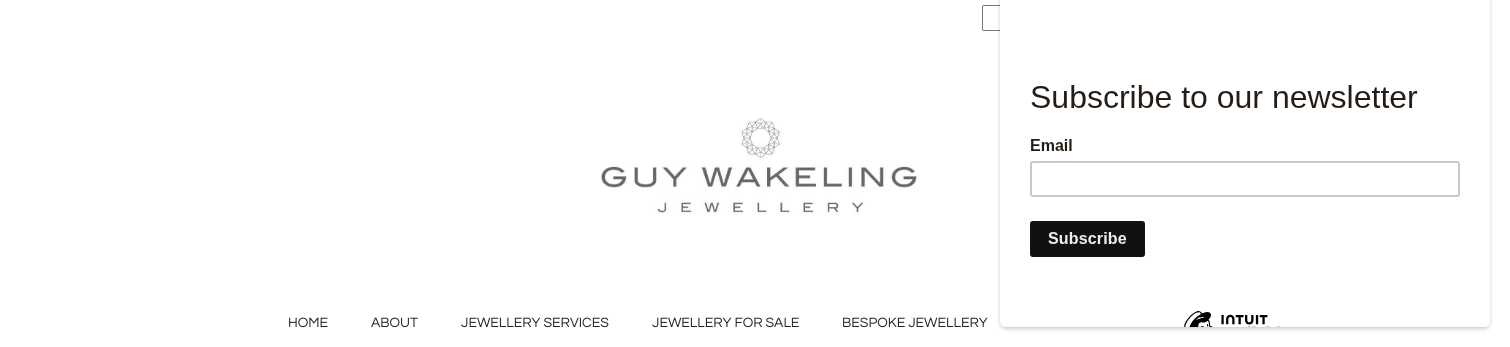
#include <cairo.h>
#include <math.h>
#include <stddef.h>

typedef struct { const char *family; double size; int italic, bold; unsigned color; } style_t;
static cairo_t *ctx;

static void ink(unsigned color) {
    cairo_set_source_rgb(ctx, (color >> 16) / 255.0, (color >> 8 & 255) / 255.0, (color & 255) / 255.0);
}

static void write(double x, double y, const char *s, const style_t *st) {
    cairo_select_font_face(ctx, st->family, st->italic ? CAIRO_FONT_SLANT_ITALIC : CAIRO_FONT_SLANT_NORMAL,
        st->bold ? CAIRO_FONT_WEIGHT_BOLD : CAIRO_FONT_WEIGHT_NORMAL);
    cairo_set_font_size(ctx, st->size);
    ink(st->color);
    cairo_move_to(ctx, x, y);
    cairo_show_text(ctx, s);
}

static void round_path(double x, double y, double w, double h, double r) {
    cairo_new_sub_path(ctx);
    cairo_arc(ctx, x + w - r, y + h - r, r, 0, M_PI / 2);
    cairo_arc(ctx, x + r, y + h - r, r, M_PI / 2, M_PI);
    cairo_arc(ctx, x + r, y + r, r, M_PI, 1.5 * M_PI);
    cairo_arc(ctx, x + w - r, y + r, r, 1.5 * M_PI, 2 * M_PI);
    cairo_close_path(ctx);
}

static void blur_box(double x, double y, double w, double h, double r, double blur, double alpha) {
    cairo_push_group_with_content(ctx, CAIRO_CONTENT_ALPHA);
    cairo_set_operator(ctx, CAIRO_OPERATOR_SOURCE);
    for (int i = 15; i >= -15 && fmin(w, h) + blur * i / 3 > 0; i -= 2) {
        double e = blur * i / 6;
        cairo_set_source_rgba(ctx, 0, 0, 0, alpha * erfc((i - 1) / 8.5) / 2);
        round_path(x - e, y - e, w + 2 * e, h + 2 * e, fmax(0, fmin(r + e + blur * .6, fmin(w, h) / 2 + e)));
        cairo_fill(ctx);
    }
    cairo_pattern_t *soft = cairo_pop_group(ctx);
    cairo_mask(ctx, soft);
    cairo_pattern_destroy(soft);
}

static void paste(const char *path, double x, double y, double w, double h) {
    cairo_surface_t *image = cairo_image_surface_create_from_png(path);
    cairo_save(ctx);
    cairo_set_source_surface(ctx, image, x, y);
    cairo_rectangle(ctx, x, y, w, h);
    cairo_fill(ctx);
    cairo_restore(ctx);
    cairo_surface_destroy(image);
}

static const style_t s1 = {"Questrial", 14, 0, 0, 0x222222};

int main(void) {
    cairo_surface_t *surface = cairo_image_surface_create(CAIRO_FORMAT_RGB24, 1510, 347);
    ctx = cairo_create(surface);
    cairo_font_options_t *options = cairo_font_options_create();
    cairo_font_options_set_hint_metrics(options, CAIRO_HINT_METRICS_OFF);
    cairo_font_options_set_hint_style(options, CAIRO_HINT_STYLE_NONE);
    cairo_set_font_options(ctx, options);
    cairo_set_miter_limit(ctx, 4);
    ink(0xffffff);
    cairo_paint(ctx);
    round_path(982.5, 5.5, 180, 25, 1.5);
    ink(0x767676);
    cairo_set_line_width(ctx, 1);
    cairo_stroke(ctx);
    ink(0x000000);
    blur_box(1000, -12, 490, 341, 6, 2, 0.2);
    ink(0xffffff);
    round_path(1000, -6, 490, 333, 6);
    cairo_fill(ctx);
    paste("pic1.png", 1003, 85, 484, 242);
    paste("pic2.png", 601, 118, 318, 97);
    write(288, 327, "HOME", &s1);
    write(371, 327, "ABOUT", &s1);
    write(461, 327, "JEWELLERY SERVICES", &s1);
    write(652, 327, "JEWELLERY FOR SALE", &s1);
    write(842, 327, "BESPOKE JEWELLERY", &s1);
    cairo_surface_write_to_png(surface, "screenshot.png");
    cairo_font_options_destroy(options);
    cairo_destroy(ctx);
    cairo_surface_destroy(surface);
    return 0;
}
